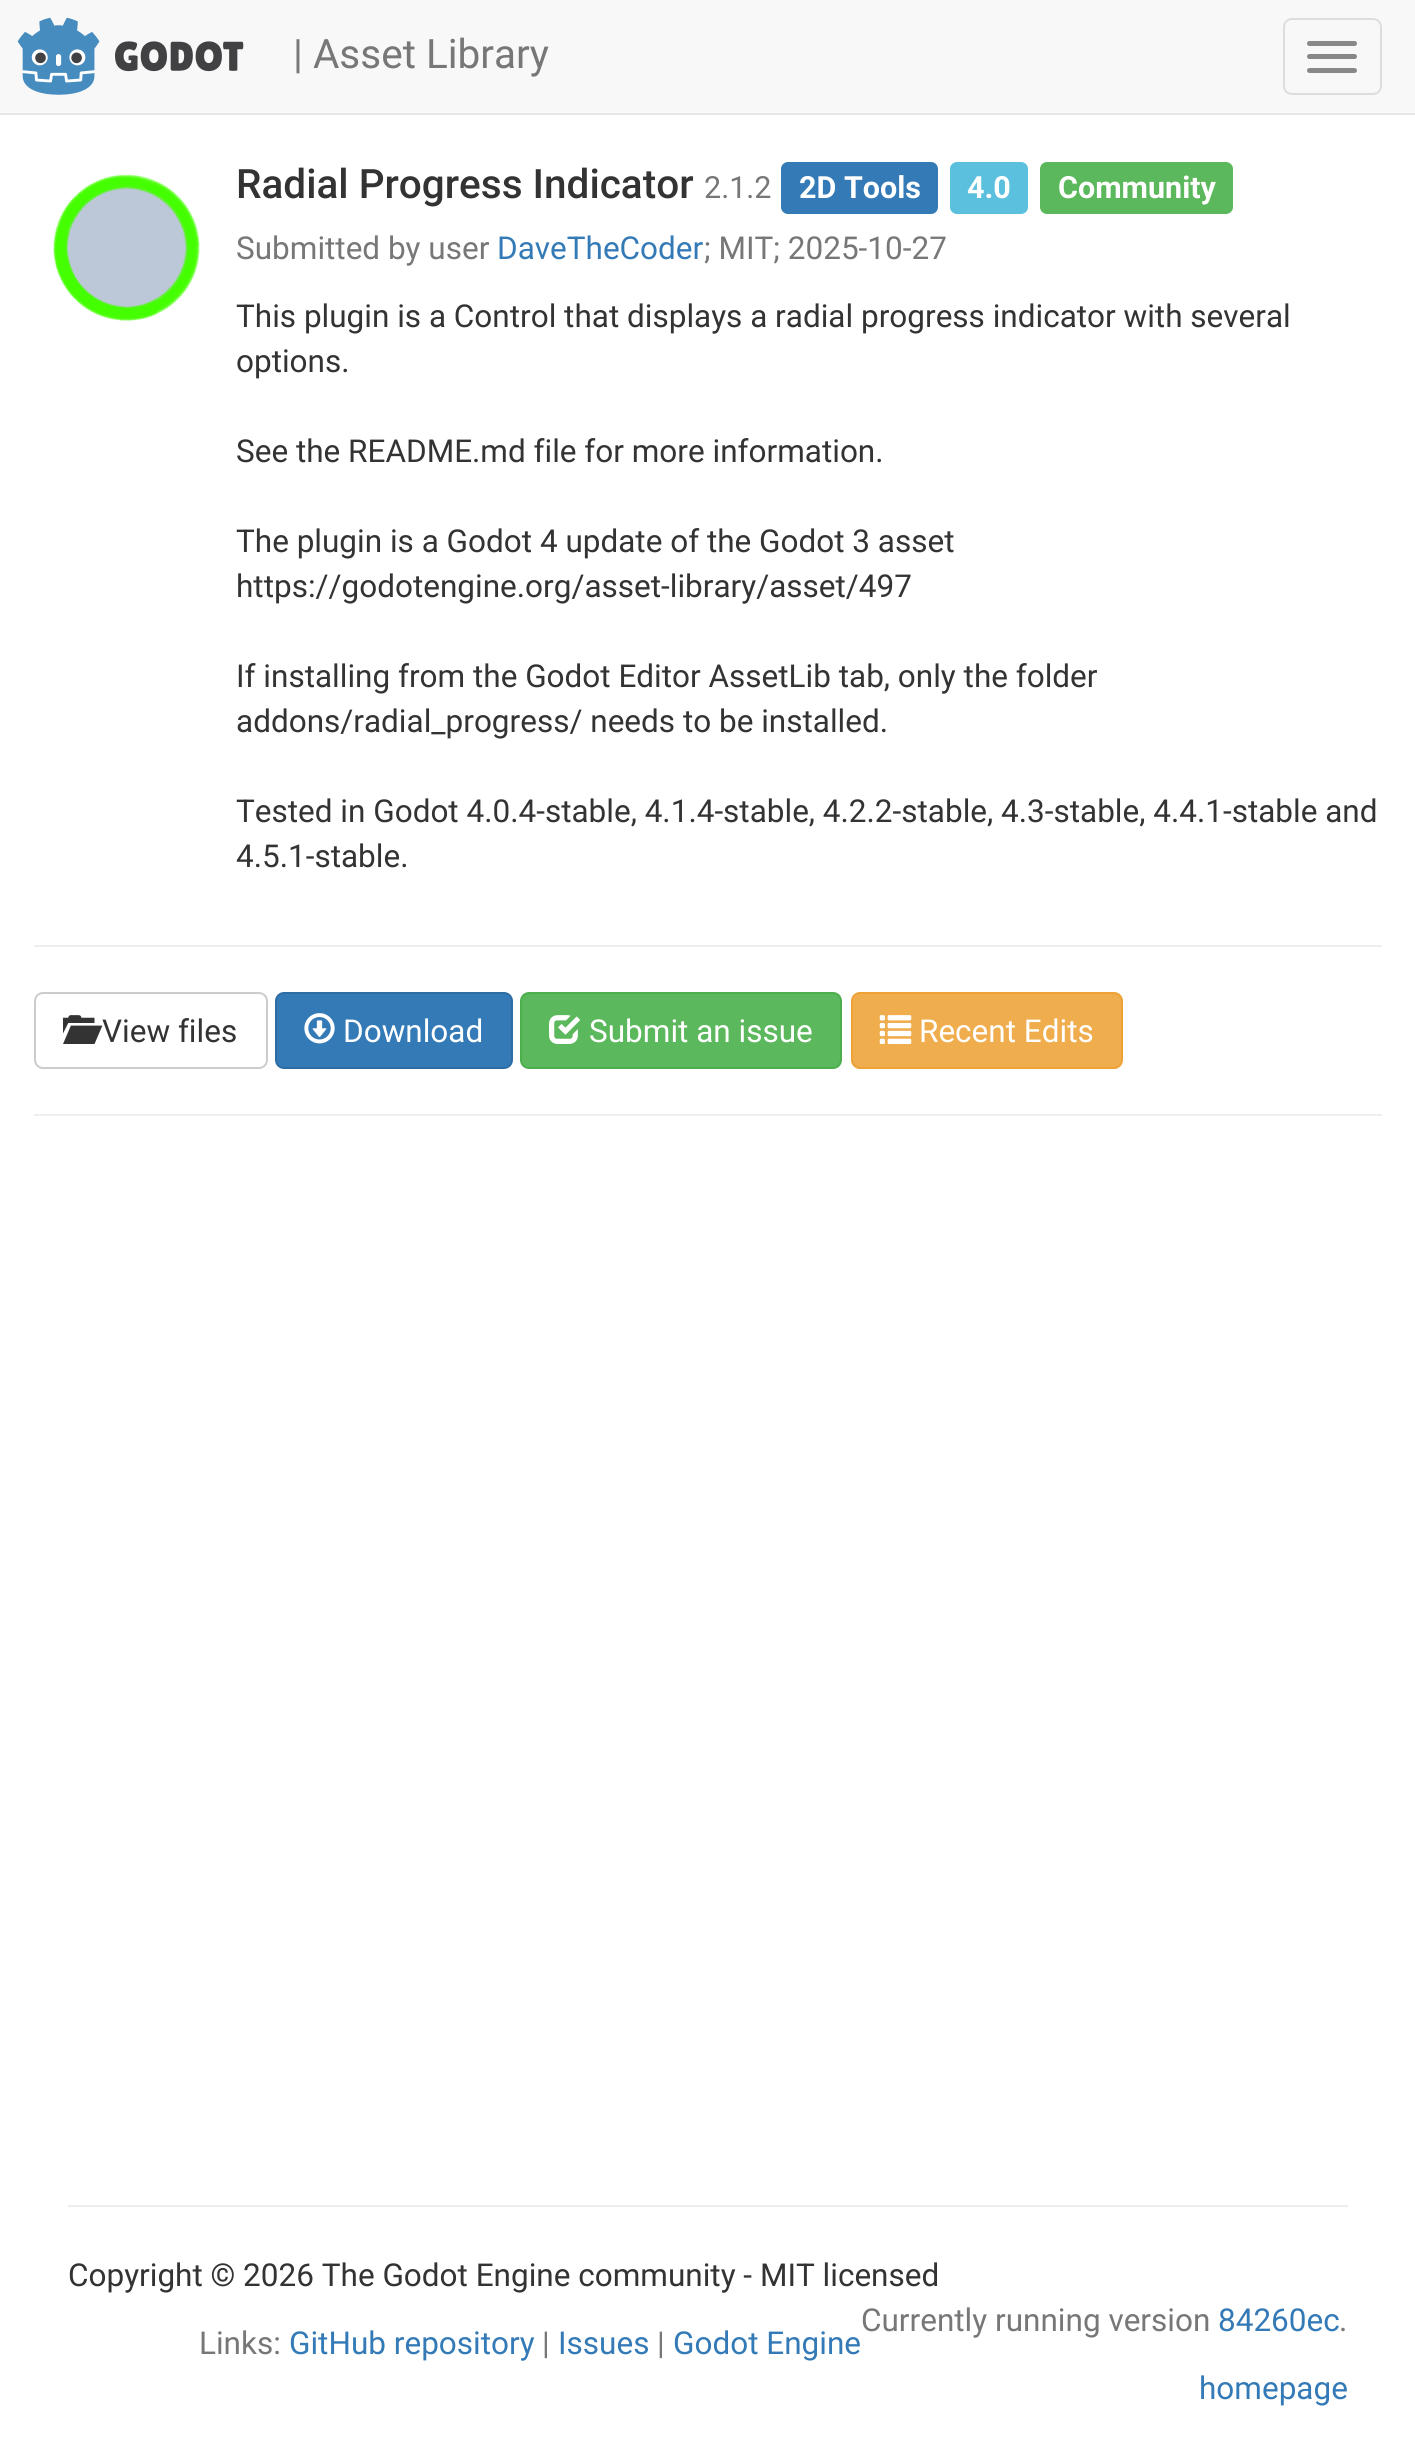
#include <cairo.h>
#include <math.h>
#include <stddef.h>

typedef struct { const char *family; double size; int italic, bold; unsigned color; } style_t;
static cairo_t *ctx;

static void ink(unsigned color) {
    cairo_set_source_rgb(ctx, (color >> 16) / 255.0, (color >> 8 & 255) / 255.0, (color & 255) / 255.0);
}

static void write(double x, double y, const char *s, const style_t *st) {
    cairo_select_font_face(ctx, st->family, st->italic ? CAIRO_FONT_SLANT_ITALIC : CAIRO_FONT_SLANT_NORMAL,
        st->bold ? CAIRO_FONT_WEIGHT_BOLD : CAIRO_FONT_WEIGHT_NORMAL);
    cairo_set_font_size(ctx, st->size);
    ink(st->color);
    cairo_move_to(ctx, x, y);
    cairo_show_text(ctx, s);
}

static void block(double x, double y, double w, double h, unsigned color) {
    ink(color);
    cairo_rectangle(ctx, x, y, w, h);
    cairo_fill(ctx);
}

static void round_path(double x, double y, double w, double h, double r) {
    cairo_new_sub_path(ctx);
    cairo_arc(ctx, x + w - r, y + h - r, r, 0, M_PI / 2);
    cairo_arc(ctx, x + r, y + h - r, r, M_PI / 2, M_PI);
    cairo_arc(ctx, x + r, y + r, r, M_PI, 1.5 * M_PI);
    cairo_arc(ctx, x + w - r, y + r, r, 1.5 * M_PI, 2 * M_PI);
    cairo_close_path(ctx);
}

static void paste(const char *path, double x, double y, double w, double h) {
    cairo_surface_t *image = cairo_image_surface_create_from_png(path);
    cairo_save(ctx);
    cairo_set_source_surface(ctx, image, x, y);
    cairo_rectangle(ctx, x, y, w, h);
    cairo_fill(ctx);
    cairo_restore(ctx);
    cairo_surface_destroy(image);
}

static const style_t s1 = {"Roboto", 40.5, 0, 0, 0x777777};
static const style_t s2 = {"Roboto Medium", 40.5, 0, 0, 0x333333};
static const style_t s3 = {"Roboto", 30.5, 0, 0, 0x777777};
static const style_t s4 = {"Roboto", 30.5, 0, 1, 0xffffff};
static const style_t s5 = {"Roboto", 31.5, 0, 0, 0x777777};
static const style_t s6 = {"Roboto", 31.5, 0, 0, 0x337ab7};
static const style_t s7 = {"Roboto", 31.5, 0, 0, 0x333333};
static const style_t s8 = {"Roboto", 31.5, 0, 0, 0xffffff};

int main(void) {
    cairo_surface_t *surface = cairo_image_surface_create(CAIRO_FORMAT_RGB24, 1415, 2458);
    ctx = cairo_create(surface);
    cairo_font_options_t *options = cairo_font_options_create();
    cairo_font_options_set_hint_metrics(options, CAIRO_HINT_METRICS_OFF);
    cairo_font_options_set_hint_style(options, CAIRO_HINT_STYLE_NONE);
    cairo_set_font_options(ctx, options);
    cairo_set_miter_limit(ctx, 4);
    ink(0xffffff);
    cairo_paint(ctx);
    block(0, 0, 1415, 113, 0xf8f8f8);
    block(0, 113, 1415, 2, 0xe7e7e7);
    paste("pic1.png", 17, 17, 227, 78);
    write(293, 68, "| Asset Library", &s1);
    round_path(1284, 19, 97, 75, 8);
    ink(0xdddddd);
    cairo_stroke(ctx);
    ink(0x888888);
    round_path(1307, 41, 50, 5, 2.5);
    cairo_fill(ctx);
    round_path(1307, 54, 50, 5, 2.5);
    cairo_fill(ctx);
    round_path(1307, 68, 50, 5, 2.5);
    cairo_fill(ctx);
    paste("pic2.png", 53, 174, 147, 147);
    write(236, 198, "Radial Progress Indicator", &s2);
    write(704, 198, "2.1.2", &s3);
    ink(0x337ab7);
    round_path(781, 162, 157, 52, 7);
    cairo_fill(ctx);
    write(799, 198, "2D Tools", &s4);
    ink(0x5bc0de);
    round_path(950, 162, 78, 52, 7);
    cairo_fill(ctx);
    write(967, 198, "4.0", &s4);
    ink(0x5cb85c);
    round_path(1040, 162, 193, 52, 7);
    cairo_fill(ctx);
    write(1058, 198, "Community", &s4);
    write(236, 259, "Submitted by user", &s5);
    write(497, 259, "DaveTheCoder", &s6);
    write(704, 259, "; MIT; 2025-10-27", &s5);
    write(236, 327, "This plugin is a Control that displays a radial progress indicator with several", &s7);
    write(236, 372, "options.", &s7);
    write(236, 462, "See the README.md file for more information.", &s7);
    write(236, 552, "The plugin is a Godot 4 update of the Godot 3 asset", &s7);
    write(236, 597, "https://godotengine.org/asset-library/asset/497", &s7);
    write(236, 687, "If installing from the Godot Editor AssetLib tab, only the folder", &s7);
    write(236, 732, "addons/radial_progress/ needs to be installed.", &s7);
    write(236, 822, "Tested in Godot 4.0.4-stable, 4.1.4-stable, 4.2.2-stable, 4.3-stable, 4.4.1-stable and", &s7);
    write(236, 867, "4.5.1-stable.", &s7);
    block(34, 945, 1348, 2, 0xeeeeee);
    round_path(35, 993, 232, 75, 8);
    ink(0xcccccc);
    cairo_stroke(ctx);
    write(102, 1042, "View files", &s7);
    paste("pic3.png", 63, 1015, 40, 29);
    ink(0x337ab7);
    round_path(276, 993, 236, 75, 8);
    cairo_fill_preserve(ctx);
    ink(0x2e6da4);
    cairo_stroke(ctx);
    paste("pic4.png", 304, 1013, 31, 31);
    write(343, 1042, "Download", &s8);
    ink(0x5cb85c);
    round_path(521, 993, 320, 75, 8);
    cairo_fill_preserve(ctx);
    ink(0x4cae4c);
    cairo_stroke(ctx);
    paste("pic5.png", 549, 1015, 31, 29);
    write(589, 1042, "Submit an issue", &s8);
    ink(0xf0ad4e);
    round_path(852, 993, 270, 75, 8);
    cairo_fill_preserve(ctx);
    ink(0xeea236);
    cairo_stroke(ctx);
    paste("pic6.png", 879, 1015, 33, 29);
    write(919, 1042, "Recent Edits", &s8);
    block(34, 1114, 1348, 2, 0xeeeeee);
    block(68, 2205, 1280, 2, 0xeeeeee);
    write(68, 2286, "Copyright © 2026 The Godot Engine community - MIT licensed", &s7);
    write(861, 2331, "Currently running version", &s5);
    write(1218, 2331, "84260ec", &s6);
    write(1339, 2331, ".", &s5);
    write(199, 2354, "Links:", &s5);
    write(289, 2354, "GitHub repository", &s6);
    write(542, 2354, "|", &s5);
    write(558, 2354, "Issues", &s6);
    write(657, 2354, "|", &s5);
    write(673, 2354, "Godot Engine", &s6);
    write(1199, 2399, "homepage", &s6);
    cairo_surface_write_to_png(surface, "screenshot.png");
    cairo_font_options_destroy(options);
    cairo_destroy(ctx);
    cairo_surface_destroy(surface);
    return 0;
}
